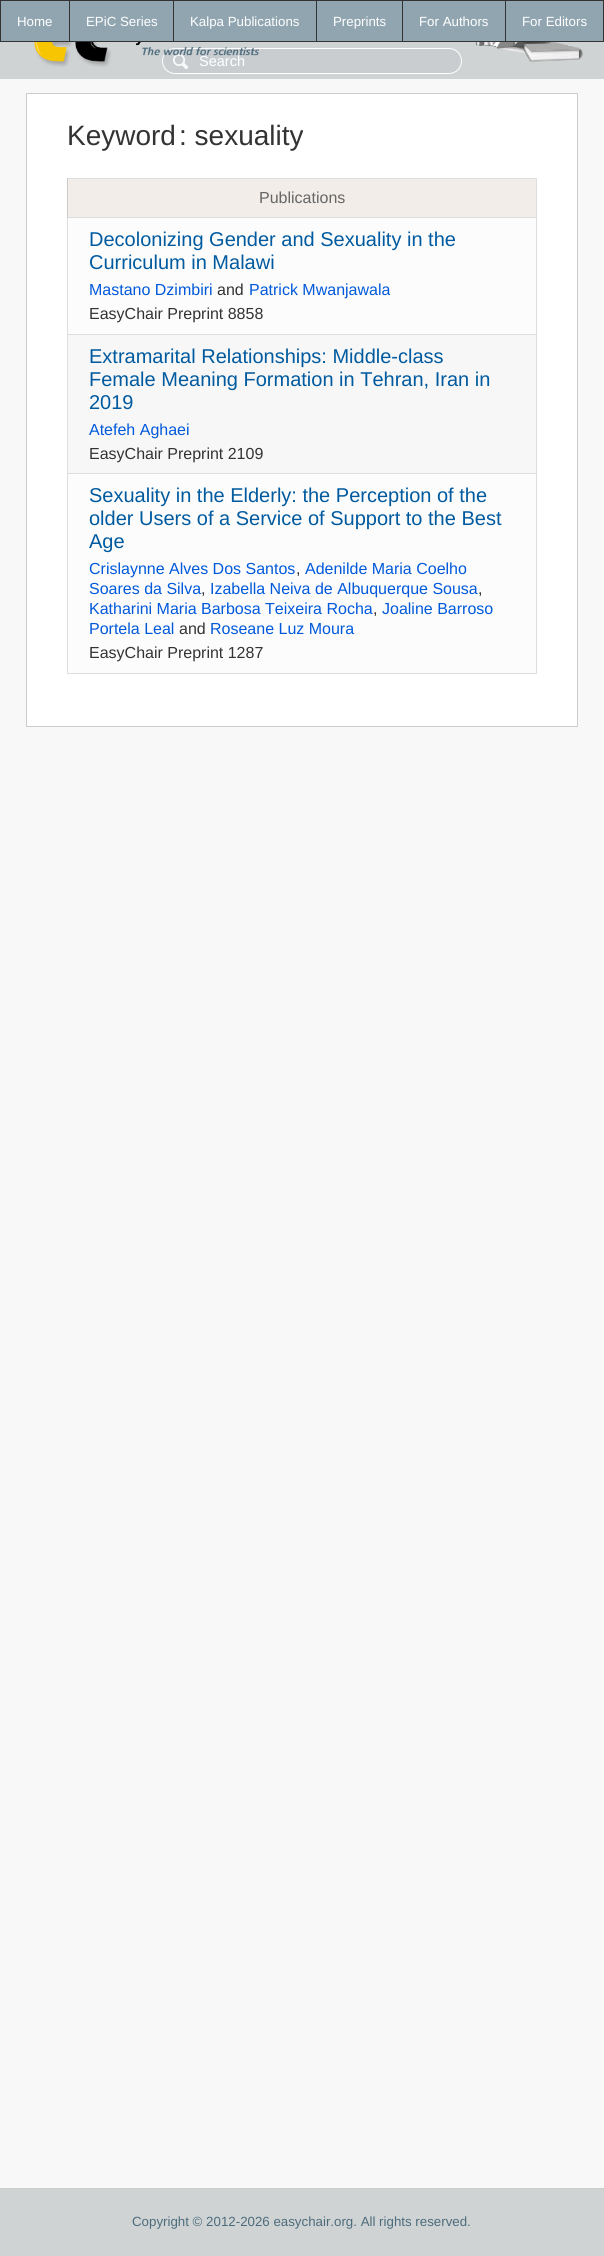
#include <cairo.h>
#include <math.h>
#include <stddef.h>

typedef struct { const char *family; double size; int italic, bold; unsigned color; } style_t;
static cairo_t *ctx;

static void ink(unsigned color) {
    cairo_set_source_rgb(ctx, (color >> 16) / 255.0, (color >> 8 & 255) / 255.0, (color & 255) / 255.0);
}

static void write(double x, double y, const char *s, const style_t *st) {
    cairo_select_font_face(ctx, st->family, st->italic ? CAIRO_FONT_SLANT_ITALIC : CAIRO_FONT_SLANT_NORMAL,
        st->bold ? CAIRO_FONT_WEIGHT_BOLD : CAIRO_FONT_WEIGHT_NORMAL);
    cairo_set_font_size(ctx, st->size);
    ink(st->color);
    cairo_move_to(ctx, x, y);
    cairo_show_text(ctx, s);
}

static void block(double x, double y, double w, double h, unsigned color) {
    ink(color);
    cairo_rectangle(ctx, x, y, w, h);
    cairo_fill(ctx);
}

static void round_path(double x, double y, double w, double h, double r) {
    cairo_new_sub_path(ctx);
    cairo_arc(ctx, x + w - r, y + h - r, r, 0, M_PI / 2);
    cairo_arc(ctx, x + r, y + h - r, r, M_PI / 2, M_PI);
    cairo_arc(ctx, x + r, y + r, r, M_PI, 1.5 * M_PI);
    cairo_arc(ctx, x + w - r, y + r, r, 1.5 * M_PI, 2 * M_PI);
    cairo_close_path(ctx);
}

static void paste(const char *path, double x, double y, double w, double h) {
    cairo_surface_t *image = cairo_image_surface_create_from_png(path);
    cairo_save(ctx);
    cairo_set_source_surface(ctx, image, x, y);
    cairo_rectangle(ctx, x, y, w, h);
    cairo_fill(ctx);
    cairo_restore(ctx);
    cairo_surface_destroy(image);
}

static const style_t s1 = {"Liberation Sans", 13.3, 0, 0, 0xffffff};
static const style_t s2 = {"Liberation Sans", 14.5, 0, 0, 0xffffff};
static const style_t s3 = {"Liberation Sans", 28, 0, 0, 0x333333};
static const style_t s4 = {"Liberation Sans", 16, 0, 0, 0x666666};
static const style_t s5 = {"Liberation Sans", 20, 0, 0, 0x005a9f};
static const style_t s6 = {"Liberation Sans", 16, 0, 0, 0x0059db};
static const style_t s7 = {"Liberation Sans", 16, 0, 0, 0x333333};
static const style_t s8 = {"Liberation Sans", 13.3, 0, 0, 0x4c6c7c};

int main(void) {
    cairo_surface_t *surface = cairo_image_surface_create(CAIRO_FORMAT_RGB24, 604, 2256);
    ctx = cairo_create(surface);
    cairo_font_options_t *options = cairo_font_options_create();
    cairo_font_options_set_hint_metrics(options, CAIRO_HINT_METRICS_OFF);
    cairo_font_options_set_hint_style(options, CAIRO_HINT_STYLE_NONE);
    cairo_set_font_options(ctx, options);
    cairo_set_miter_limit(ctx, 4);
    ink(0x90a5b0);
    cairo_paint(ctx);
    block(505, 0, 99, 1, 0x333333);
    block(603, 0, 1, 42, 0x333333);
    block(505, 41, 99, 1, 0x333333);
    block(505, 0, 1, 42, 0x333333);
    block(402, 0, 104, 1, 0x333333);
    block(402, 41, 104, 1, 0x333333);
    block(402, 0, 1, 42, 0x333333);
    block(316, 0, 87, 1, 0x333333);
    block(316, 41, 87, 1, 0x333333);
    block(316, 0, 1, 42, 0x333333);
    block(173, 0, 144, 1, 0x333333);
    block(173, 41, 144, 1, 0x333333);
    block(173, 0, 1, 42, 0x333333);
    block(69, 0, 105, 1, 0x333333);
    block(69, 41, 105, 1, 0x333333);
    block(69, 0, 1, 42, 0x333333);
    block(0, 0, 70, 1, 0x333333);
    block(0, 41, 70, 1, 0x333333);
    block(0, 0, 1, 42, 0x333333);
    write(17, 26, "Home", &s1);
    write(86, 26, "EPiC Series", &s1);
    write(190, 26, "Kalpa Publications", &s1);
    write(333, 26, "Preprints", &s1);
    write(419, 26, "For Authors", &s1);
    write(522, 26, "For Editors", &s1);
    block(0, 43, 603, 35, 0xd0d3d4);
    block(0, 42, 604, 1, 0xd0d3d4);
    ink(0xc9cdd0);
    round_path(162, 48, 300, 26, 13);
    cairo_fill(ctx);
    paste("pic3.png", 173, 54, 15, 15);
    round_path(162.5, 48.5, 299, 25, 12.5);
    ink(0xffffff);
    cairo_set_line_width(ctx, 1);
    cairo_stroke(ctx);
    write(199, 66, "Search", &s2);
    paste("pic1.png", 34, 42, 225, 25);
    paste("pic2.png", 476, 42, 107, 20);
    block(603, 42, 1, 37, 0xd0d3d4);
    block(0, 78, 604, 1, 0xd0d3d4);
    block(0, 79, 604, 2109, 0xf8f8f8);
    ink(0xffffff);
    cairo_rectangle(ctx, 26.5, 93.5, 551, 633);
    cairo_fill_preserve(ctx);
    ink(0xcccccc);
    cairo_stroke(ctx);
    write(67, 145, "Keyword", &s3);
    write(179, 145, ": sexuality", &s3);
    block(67, 178, 470, 1, 0xdedede);
    block(536, 178, 1, 496, 0xdedede);
    block(67, 673, 470, 1, 0xdedede);
    block(67, 218, 1, 456, 0xdedede);
    block(68, 179, 468, 38, 0xf2ede9);
    block(67, 217, 470, 1, 0xdedede);
    block(67, 178, 1, 40, 0xcccccc);
    write(259, 203, "Publications", &s4);
    block(68, 218, 468, 116, 0xfcfcfc);
    block(67, 334, 470, 1, 0xdedede);
    write(89, 246, "Decolonizing Gender and Sexuality in the", &s5);
    write(89, 269, "Curriculum in Malawi", &s5);
    write(89, 295, "Mastano Dzimbiri", &s6);
    write(217, 295, "and", &s7);
    write(249, 295, "Patrick Mwanjawala", &s6);
    write(89, 319, "EasyChair Preprint 8858", &s7);
    block(68, 335, 468, 138, 0xf7f7f7);
    block(67, 473, 470, 1, 0xdedede);
    write(89, 363, "Extramarital Relationships: Middle-class", &s5);
    write(89, 386, "Female Meaning Formation in Tehran, Iran in", &s5);
    write(89, 409, "2019", &s5);
    write(89, 435, "Atefeh Aghaei", &s6);
    write(89, 459, "EasyChair Preprint 2109", &s7);
    block(68, 474, 468, 199, 0xfcfcfc);
    write(89, 502, "Sexuality in the Elderly: the Perception of the", &s5);
    write(89, 525, "older Users of a Service of Support to the Best", &s5);
    write(89, 548, "Age", &s5);
    write(89, 574, "Crislaynne Alves Dos Santos", &s6);
    write(296, 574, ",", &s7);
    write(305, 574, "Adenilde Maria Coelho", &s6);
    write(89, 594, "Soares da Silva", &s6);
    write(201, 594, ",", &s7);
    write(210, 594, "Izabella Neiva de Albuquerque Sousa", &s6);
    write(478, 594, ",", &s7);
    write(89, 614, "Katharini Maria Barbosa Teixeira Rocha", &s6);
    write(373, 614, ",", &s7);
    write(382, 614, "Joaline Barroso", &s6);
    write(89, 634, "Portela Leal", &s6);
    write(179, 634, "and", &s7);
    write(210, 634, "Roseane Luz Moura", &s6);
    write(89, 658, "EasyChair Preprint 1287", &s7);
    block(0, 2189, 604, 67, 0xd0d3d4);
    block(0, 2188, 604, 1, 0xcccccc);
    write(132, 2226, "Copyright © 2012-2026 easychair.org. All rights reserved.", &s8);
    cairo_surface_write_to_png(surface, "screenshot.png");
    cairo_font_options_destroy(options);
    cairo_destroy(ctx);
    cairo_surface_destroy(surface);
    return 0;
}
